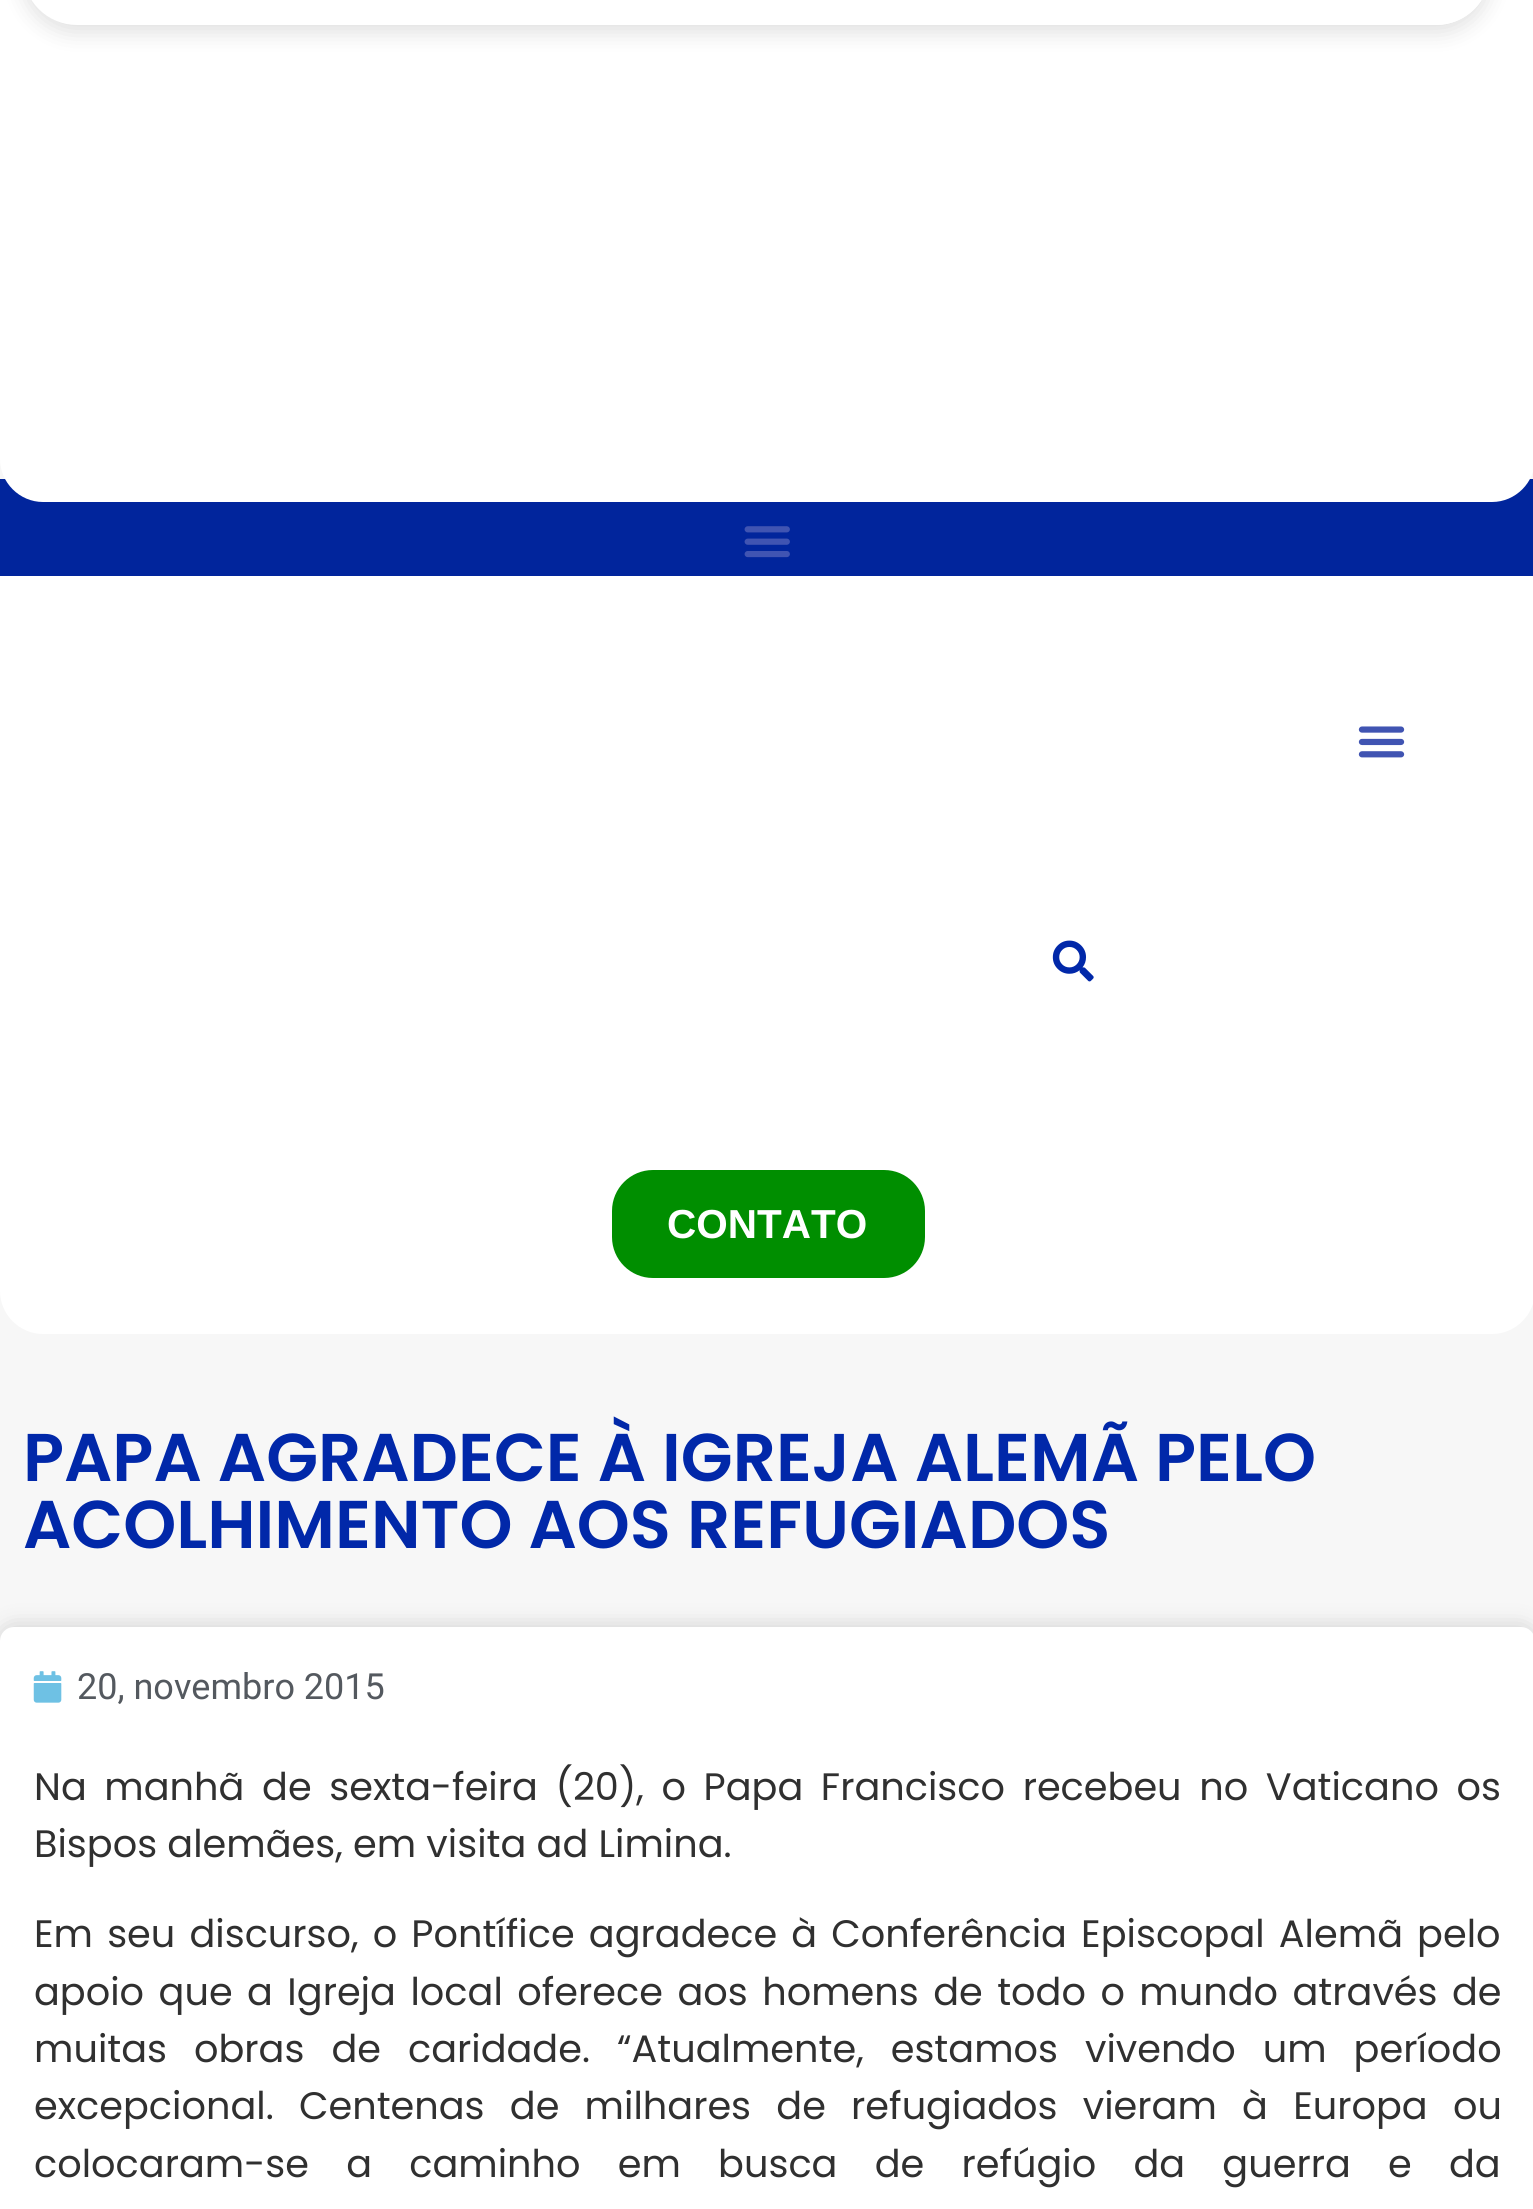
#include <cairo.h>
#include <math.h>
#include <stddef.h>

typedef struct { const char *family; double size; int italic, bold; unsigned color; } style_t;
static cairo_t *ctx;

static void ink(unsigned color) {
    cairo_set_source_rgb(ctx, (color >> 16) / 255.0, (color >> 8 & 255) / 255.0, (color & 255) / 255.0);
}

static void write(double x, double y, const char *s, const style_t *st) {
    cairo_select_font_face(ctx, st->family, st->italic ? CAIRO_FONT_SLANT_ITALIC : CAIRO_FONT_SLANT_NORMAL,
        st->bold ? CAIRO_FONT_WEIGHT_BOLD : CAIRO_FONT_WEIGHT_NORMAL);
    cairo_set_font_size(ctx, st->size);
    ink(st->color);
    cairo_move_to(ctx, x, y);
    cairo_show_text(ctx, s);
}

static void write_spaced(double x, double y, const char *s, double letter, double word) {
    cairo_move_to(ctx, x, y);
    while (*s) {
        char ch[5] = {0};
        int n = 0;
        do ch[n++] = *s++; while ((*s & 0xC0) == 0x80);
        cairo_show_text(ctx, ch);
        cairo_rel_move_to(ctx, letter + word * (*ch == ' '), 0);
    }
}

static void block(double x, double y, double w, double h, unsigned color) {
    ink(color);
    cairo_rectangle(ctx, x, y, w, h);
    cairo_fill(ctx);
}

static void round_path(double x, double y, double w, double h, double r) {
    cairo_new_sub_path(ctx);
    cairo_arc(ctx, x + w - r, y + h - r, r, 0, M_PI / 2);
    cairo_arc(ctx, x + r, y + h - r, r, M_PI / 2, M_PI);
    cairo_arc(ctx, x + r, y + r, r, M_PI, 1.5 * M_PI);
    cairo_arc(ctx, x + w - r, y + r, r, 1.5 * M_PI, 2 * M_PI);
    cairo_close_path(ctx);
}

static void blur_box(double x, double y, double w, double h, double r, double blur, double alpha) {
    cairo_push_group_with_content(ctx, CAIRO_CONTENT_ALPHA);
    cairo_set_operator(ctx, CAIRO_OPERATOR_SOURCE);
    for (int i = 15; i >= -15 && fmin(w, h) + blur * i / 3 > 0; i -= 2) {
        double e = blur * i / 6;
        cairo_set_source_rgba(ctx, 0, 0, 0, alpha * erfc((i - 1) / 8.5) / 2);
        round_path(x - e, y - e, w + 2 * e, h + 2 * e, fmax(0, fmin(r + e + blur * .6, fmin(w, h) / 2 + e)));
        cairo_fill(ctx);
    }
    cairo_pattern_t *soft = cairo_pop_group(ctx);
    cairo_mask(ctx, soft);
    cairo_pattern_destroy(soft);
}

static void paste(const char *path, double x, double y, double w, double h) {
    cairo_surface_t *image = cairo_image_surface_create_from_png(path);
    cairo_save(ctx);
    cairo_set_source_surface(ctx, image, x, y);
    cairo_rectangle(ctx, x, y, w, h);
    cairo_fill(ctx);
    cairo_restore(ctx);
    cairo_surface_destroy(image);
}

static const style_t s1 = {"Liberation Sans", 40.5, 0, 1, 0xffffff};
static const style_t s2 = {"Poppins SemiBold", 67.5, 0, 0, 0x0128a9};
static const style_t s3 = {"Roboto", 36, 0, 0, 0x54595f};
static const style_t s4 = {"Poppins", 38.25, 0, 0, 0x303030};

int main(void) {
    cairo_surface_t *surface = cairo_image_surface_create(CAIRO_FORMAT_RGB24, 1533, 2209);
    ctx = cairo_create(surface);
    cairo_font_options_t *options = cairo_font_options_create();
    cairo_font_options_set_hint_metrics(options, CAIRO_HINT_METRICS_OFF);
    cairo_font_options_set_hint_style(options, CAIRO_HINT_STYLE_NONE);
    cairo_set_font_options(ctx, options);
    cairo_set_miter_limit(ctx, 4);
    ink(0xf7f7f7);
    cairo_paint(ctx);
    block(0, 479, 1533, 97, 0x01259c);
    ink(0xffffff);
    cairo_new_path(ctx);
    cairo_move_to(ctx, 0, -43);
    cairo_line_to(ctx, 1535, -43);
    cairo_line_to(ctx, 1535, 459);
    cairo_curve_to(ctx, 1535, 482.5, 1515.5, 502, 1492, 502);
    cairo_line_to(ctx, 43, 502);
    cairo_curve_to(ctx, 19.5, 502, 0, 482.5, 0, 459);
    cairo_close_path(ctx);
    cairo_fill(ctx);
    ink(0x000000);
    blur_box(23, -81, 1467, 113, 54, 11, 0.13);
    ink(0xffffff);
    round_path(23, -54, 1467, 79, 54);
    cairo_fill(ctx);
    cairo_new_path(ctx);
    cairo_move_to(ctx, 1377, -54);
    cairo_line_to(ctx, 1436, -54);
    cairo_curve_to(ctx, 1466, -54, 1490, -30, 1490, 0);
    cairo_line_to(ctx, 1490, -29);
    cairo_curve_to(ctx, 1490, 1, 1466, 25, 1436, 25);
    cairo_line_to(ctx, 1377, 25);
    cairo_close_path(ctx);
    cairo_fill(ctx);
    paste("pic1.png", 744, 526, 46, 32);
    cairo_new_path(ctx);
    cairo_move_to(ctx, 0, 576);
    cairo_line_to(ctx, 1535, 576);
    cairo_line_to(ctx, 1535, 1291);
    cairo_curve_to(ctx, 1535, 1314.5, 1515.5, 1334, 1492, 1334);
    cairo_line_to(ctx, 43, 1334);
    cairo_curve_to(ctx, 19.5, 1334, 0, 1314.5, 0, 1291);
    cairo_close_path(ctx);
    cairo_fill(ctx);
    paste("pic2.png", 1358, 726, 47, 32);
    paste("pic3.png", 1052, 940, 42, 42);
    ink(0x008e00);
    round_path(612, 1170, 313, 108, 41);
    cairo_fill(ctx);
    write(667, 1238, "CONTATO", &s1);
    write(23, 1481, "PAPA AGRADECE À IGREJA ALEMÃ PELO", &s2);
    write(23, 1548, "ACOLHIMENTO AOS REFUGIADOS", &s2);
    ink(0x000000);
    blur_box(0, 1627, 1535, 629, 14, 11, 0.17);
    ink(0xffffff);
    round_path(0, 1627, 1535, 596, 14);
    cairo_fill(ctx);
    paste("pic4.png", 33, 1671, 29, 32);
    write(77, 1699, "20, novembro 2015", &s3);
    cairo_select_font_face(ctx, "Poppins", CAIRO_FONT_SLANT_NORMAL, CAIRO_FONT_WEIGHT_NORMAL);
    cairo_set_font_size(ctx, 38.25);
    ink(0x303030);
    write_spaced(34, 1800, "Na manhã de sexta-feira (20), o Papa Francisco recebeu no Vaticano os", 0, 7.4);
    write(34, 1857, "Bispos alemães, em visita ad Limina.", &s4);
    write_spaced(34, 1947, "Em seu discurso, o Pontífice agradece à Conferência Episcopal Alemã pelo", 0, 3.9);
    write_spaced(34, 2005, "apoio que a Igreja local oferece aos homens de todo o mundo através de", 0, 4.25);
    write_spaced(34, 2062, "muitas obras de caridade. “Atualmente, estamos vivendo um período", 0, 16.75);
    write_spaced(34, 2119, "excepcional. Centenas de milhares de refugiados vieram à Europa ou", 0, 15);
    write_spaced(34, 2177, "colocaram-se a caminho em busca de refúgio da guerra e da", 0, 27);
    cairo_surface_write_to_png(surface, "screenshot.png");
    cairo_font_options_destroy(options);
    cairo_destroy(ctx);
    cairo_surface_destroy(surface);
    return 0;
}
